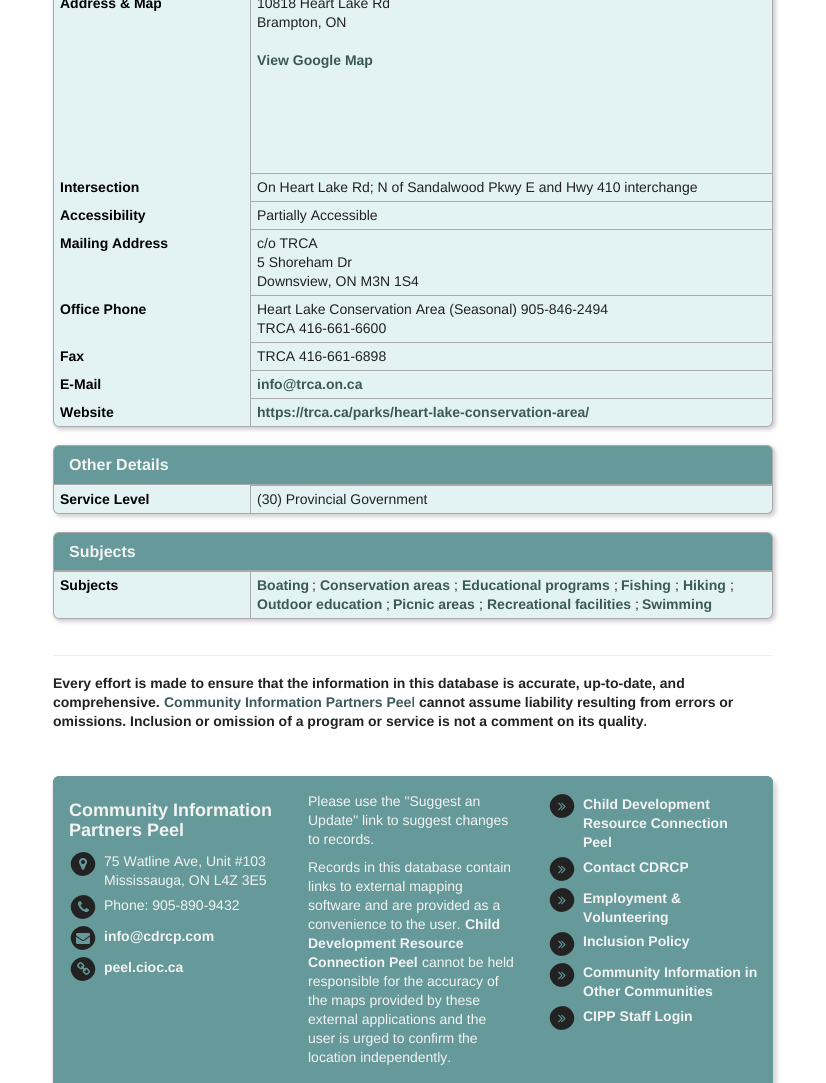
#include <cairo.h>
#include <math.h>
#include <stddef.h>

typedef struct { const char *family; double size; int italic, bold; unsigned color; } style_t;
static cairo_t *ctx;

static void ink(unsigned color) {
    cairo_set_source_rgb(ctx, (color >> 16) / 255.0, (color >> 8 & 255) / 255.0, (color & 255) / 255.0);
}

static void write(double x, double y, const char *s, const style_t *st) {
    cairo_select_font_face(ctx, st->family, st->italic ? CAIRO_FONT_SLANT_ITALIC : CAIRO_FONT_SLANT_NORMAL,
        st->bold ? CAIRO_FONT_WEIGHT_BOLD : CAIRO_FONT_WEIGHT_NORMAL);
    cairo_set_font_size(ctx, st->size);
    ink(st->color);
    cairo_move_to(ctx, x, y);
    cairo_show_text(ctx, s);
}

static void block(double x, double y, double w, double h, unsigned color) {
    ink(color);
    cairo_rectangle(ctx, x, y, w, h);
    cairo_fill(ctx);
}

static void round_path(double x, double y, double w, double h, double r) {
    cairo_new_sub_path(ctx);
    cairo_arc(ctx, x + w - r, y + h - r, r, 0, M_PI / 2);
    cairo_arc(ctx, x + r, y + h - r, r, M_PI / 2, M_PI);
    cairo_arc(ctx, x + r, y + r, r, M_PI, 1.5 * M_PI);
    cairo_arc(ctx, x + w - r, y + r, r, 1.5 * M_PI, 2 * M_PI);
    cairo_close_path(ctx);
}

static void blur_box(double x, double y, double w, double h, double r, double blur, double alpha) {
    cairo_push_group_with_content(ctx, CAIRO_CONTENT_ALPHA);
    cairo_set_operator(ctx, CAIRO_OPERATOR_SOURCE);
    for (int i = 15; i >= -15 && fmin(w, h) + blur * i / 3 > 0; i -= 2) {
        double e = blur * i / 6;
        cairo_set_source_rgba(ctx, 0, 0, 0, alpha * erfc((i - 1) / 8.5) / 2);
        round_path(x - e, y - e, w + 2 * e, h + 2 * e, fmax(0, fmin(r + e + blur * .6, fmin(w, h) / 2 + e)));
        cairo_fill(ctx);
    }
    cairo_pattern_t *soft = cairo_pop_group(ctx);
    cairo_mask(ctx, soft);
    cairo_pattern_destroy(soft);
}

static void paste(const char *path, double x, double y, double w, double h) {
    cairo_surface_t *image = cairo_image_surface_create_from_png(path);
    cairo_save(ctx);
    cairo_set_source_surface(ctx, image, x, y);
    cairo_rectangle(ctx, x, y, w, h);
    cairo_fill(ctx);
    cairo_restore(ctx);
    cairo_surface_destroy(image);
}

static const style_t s1 = {"Liberation Sans", 14, 0, 1, 0x000000};
static const style_t s2 = {"Liberation Sans", 14, 0, 0, 0x222222};
static const style_t s3 = {"Liberation Sans", 14, 0, 1, 0x3b5959};
static const style_t s4 = {"Liberation Sans", 16, 0, 1, 0xf3f3f3};
static const style_t s5 = {"Liberation Sans", 14, 0, 1, 0x222222};
static const style_t s6 = {"Liberation Sans", 18, 0, 1, 0xf3f3f3};
static const style_t s7 = {"Liberation Sans", 14, 0, 0, 0xf3f3f3};
static const style_t s8 = {"Liberation Sans", 14, 0, 1, 0xf3f3f3};

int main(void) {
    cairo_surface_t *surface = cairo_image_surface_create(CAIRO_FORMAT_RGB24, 826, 1083);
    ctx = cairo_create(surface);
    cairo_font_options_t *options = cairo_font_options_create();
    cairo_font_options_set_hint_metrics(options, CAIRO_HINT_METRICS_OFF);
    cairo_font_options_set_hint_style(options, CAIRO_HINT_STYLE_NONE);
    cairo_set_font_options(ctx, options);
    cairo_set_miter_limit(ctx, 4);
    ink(0xffffff);
    cairo_paint(ctx);
    ink(0x666666);
    blur_box(54, -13, 722, 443, 7, 2, 0.3);
    ink(0xe3f2f2);
    round_path(53.5, -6.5, 719, 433, 5.5);
    cairo_fill_preserve(ctx);
    ink(0xaaaaaa);
    cairo_set_line_width(ctx, 1);
    cairo_stroke(ctx);
    write(60, 8, "Address & Map", &s1);
    write(257, 8, "10818 Heart Lake Rd", &s2);
    write(257, 27, "Brampton, ON", &s2);
    write(257, 65, "View Google Map", &s3);
    write(60, 192, "Intersection", &s1);
    block(250, 173, 523, 1, 0xaaaaaa);
    block(250, 201, 523, 1, 0xaaaaaa);
    block(250, 229, 523, 1, 0xaaaaaa);
    block(250, 295, 523, 1, 0xaaaaaa);
    block(250, 342, 523, 1, 0xaaaaaa);
    block(250, 370, 523, 1, 0xaaaaaa);
    block(250, 398, 523, 1, 0xaaaaaa);
    block(250, 398, 1, 28, 0xaaaaaa);
    block(250, 370, 1, 29, 0xaaaaaa);
    block(250, 342, 1, 29, 0xaaaaaa);
    block(250, 295, 1, 48, 0xaaaaaa);
    block(250, 229, 1, 67, 0xaaaaaa);
    block(250, 201, 1, 29, 0xaaaaaa);
    block(250, 0, 1, 202, 0xaaaaaa);
    write(257, 192, "On Heart Lake Rd; N of Sandalwood Pkwy E and Hwy 410 interchange", &s2);
    write(60, 220, "Accessibility", &s1);
    write(257, 220, "Partially Accessible", &s2);
    write(60, 248, "Mailing Address", &s1);
    write(257, 248, "c/o TRCA", &s2);
    write(257, 267, "5 Shoreham Dr", &s2);
    write(257, 286, "Downsview, ON M3N 1S4", &s2);
    write(60, 314, "Office Phone", &s1);
    write(257, 314, "Heart Lake Conservation Area (Seasonal) 905-846-2494", &s2);
    write(257, 333, "TRCA 416-661-6600", &s2);
    write(60, 361, "Fax", &s1);
    write(257, 361, "TRCA 416-661-6898", &s2);
    write(60, 389, "E-Mail", &s1);
    write(257, 389, "info@trca.on.ca", &s3);
    ink(0xe3f2f2);
    cairo_new_path(ctx);
    cairo_move_to(ctx, 54, 398);
    cairo_line_to(ctx, 250, 398);
    cairo_line_to(ctx, 250, 426);
    cairo_line_to(ctx, 60, 426);
    cairo_curve_to(ctx, 56.5, 426, 54, 423.5, 54, 420);
    cairo_close_path(ctx);
    cairo_fill(ctx);
    write(60, 417, "Website", &s1);
    write(257, 417, "https://trca.ca/parks/heart-lake-conservation-area/", &s3);
    ink(0x666666);
    blur_box(54, 446, 722, 71, 7, 2, 0.3);
    ink(0xe3f2f2);
    round_path(53.5, 445.5, 719, 68, 5.5);
    cairo_fill_preserve(ctx);
    ink(0xaaaaaa);
    cairo_stroke(ctx);
    ink(0x669999);
    cairo_new_path(ctx);
    cairo_move_to(ctx, 59, 446);
    cairo_line_to(ctx, 767, 446);
    cairo_curve_to(ctx, 770, 446, 772, 448, 772, 451);
    cairo_line_to(ctx, 772, 485);
    cairo_line_to(ctx, 54, 485);
    cairo_line_to(ctx, 54, 451);
    cairo_curve_to(ctx, 54, 448, 56, 446, 59, 446);
    cairo_close_path(ctx);
    cairo_fill(ctx);
    block(54, 484, 718, 1, 0xaaaaaa);
    write(69, 470, "Other Details", &s4);
    block(251, 485, 521, 1, 0xaaaaaa);
    ink(0xe3f2f2);
    cairo_new_path(ctx);
    cairo_move_to(ctx, 54, 485);
    cairo_line_to(ctx, 250, 485);
    cairo_line_to(ctx, 250, 513);
    cairo_line_to(ctx, 60, 513);
    cairo_curve_to(ctx, 56.5, 513, 54, 510.5, 54, 507);
    cairo_close_path(ctx);
    cairo_fill(ctx);
    write(60, 504, "Service Level", &s1);
    block(250, 485, 1, 28, 0xaaaaaa);
    write(257, 504, "(30) Provincial Government", &s2);
    ink(0x666666);
    blur_box(54, 533, 722, 89, 7, 2, 0.3);
    ink(0xe3f2f2);
    round_path(53.5, 532.5, 719, 86, 5.5);
    cairo_fill_preserve(ctx);
    ink(0xaaaaaa);
    cairo_stroke(ctx);
    ink(0x669999);
    cairo_new_path(ctx);
    cairo_move_to(ctx, 59, 533);
    cairo_line_to(ctx, 767, 533);
    cairo_curve_to(ctx, 770, 533, 772, 535, 772, 538);
    cairo_line_to(ctx, 772, 571);
    cairo_line_to(ctx, 54, 571);
    cairo_line_to(ctx, 54, 538);
    cairo_curve_to(ctx, 54, 535, 56, 533, 59, 533);
    cairo_close_path(ctx);
    cairo_fill(ctx);
    block(54, 570, 718, 2, 0xaaaaaa);
    write(69, 557, "Subjects", &s4);
    ink(0xe3f2f2);
    cairo_new_path(ctx);
    cairo_move_to(ctx, 54, 572);
    cairo_line_to(ctx, 250, 572);
    cairo_line_to(ctx, 250, 618);
    cairo_line_to(ctx, 60, 618);
    cairo_curve_to(ctx, 56.5, 618, 54, 615.5, 54, 612);
    cairo_close_path(ctx);
    cairo_fill(ctx);
    write(60, 590, "Subjects", &s1);
    block(250, 571, 1, 48, 0xaaaaaa);
    write(257, 590, "Boating", &s3);
    write(312, 590, ";", &s2);
    write(320, 590, "Conservation areas", &s3);
    write(454, 590, ";", &s2);
    write(462, 590, "Educational programs", &s3);
    write(614, 590, ";", &s2);
    write(621, 590, "Fishing", &s3);
    write(675, 590, ";", &s2);
    write(683, 590, "Hiking", &s3);
    write(730, 590, ";", &s2);
    write(257, 609, "Outdoor education", &s3);
    write(386, 609, ";", &s2);
    write(393, 609, "Picnic areas", &s3);
    write(479, 609, ";", &s2);
    write(487, 609, "Recreational facilities", &s3);
    write(635, 609, ";", &s2);
    write(642, 609, "Swimming", &s3);
    block(53, 655, 720, 1, 0xeeeeee);
    write(53, 688, "Every effort is made to ensure that the information in this database is accurate, up-to-date, and", &s5);
    write(53, 707, "comprehensive.", &s5);
    write(164, 707, "Community Information Partners Peel", &s3);
    write(419, 707, "cannot assume liability resulting from errors or", &s5);
    write(53, 726, "omissions. Inclusion or omission of a program or service is not a comment on its quality.", &s5);
    ink(0x666666);
    blur_box(53, 779, 724, 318, 8, 2, 0.25);
    ink(0x669999);
    round_path(53.5, 776.5, 719, 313, 5.5);
    cairo_fill_preserve(ctx);
    cairo_stroke(ctx);
    write(69, 816, "Community Information", &s6);
    write(69, 836, "Partners Peel", &s6);
    ink(0x222222);
    cairo_new_path(ctx);
    cairo_move_to(ctx, 93.5, 858);
    cairo_curve_to(ctx, 101.5, 871.5, 80.5, 883.5, 72.5, 870);
    cairo_curve_to(ctx, 64.5, 856.5, 85.5, 844.5, 93.5, 858);
    cairo_close_path(ctx);
    cairo_fill(ctx);
    paste("pic1.png", 79, 858, 8, 12);
    write(104, 866, "75 Watline Ave, Unit #103", &s7);
    write(104, 885, "Mississauga, ON L4Z 3E5", &s7);
    ink(0x222222);
    cairo_new_path(ctx);
    cairo_move_to(ctx, 93.5, 901);
    cairo_curve_to(ctx, 101.5, 914.5, 80.5, 926.5, 72.5, 913);
    cairo_curve_to(ctx, 64.5, 899.5, 85.5, 887.5, 93.5, 901);
    cairo_close_path(ctx);
    cairo_fill(ctx);
    paste("pic2.png", 78, 901, 11, 11);
    write(104, 910, "Phone: 905-890-9432", &s7);
    ink(0x222222);
    cairo_new_path(ctx);
    cairo_move_to(ctx, 93.5, 932);
    cairo_curve_to(ctx, 101.5, 945.5, 80.5, 957.5, 72.5, 944);
    cairo_curve_to(ctx, 64.5, 930.5, 85.5, 918.5, 93.5, 932);
    cairo_close_path(ctx);
    cairo_fill(ctx);
    paste("pic3.png", 76, 933, 14, 11);
    write(104, 941, "info@cdrcp.com", &s8);
    ink(0x222222);
    cairo_new_path(ctx);
    cairo_move_to(ctx, 93.5, 963);
    cairo_curve_to(ctx, 101.5, 976.5, 80.5, 988.5, 72.5, 975);
    cairo_curve_to(ctx, 64.5, 961.5, 85.5, 949.5, 93.5, 963);
    cairo_close_path(ctx);
    cairo_fill(ctx);
    paste("pic4.png", 77, 962, 13, 13);
    write(104, 972, "peel.cioc.ca", &s8);
    write(308, 806, "Please use the \"Suggest an", &s7);
    write(308, 825, "Update\" link to suggest changes", &s7);
    write(308, 844, "to records.", &s7);
    write(308, 872, "Records in this database contain", &s7);
    write(308, 891, "links to external mapping", &s7);
    write(308, 910, "software and are provided as a", &s7);
    write(308, 929, "convenience to the user.", &s7);
    write(465, 929, "Child", &s8);
    write(308, 948, "Development Resource", &s8);
    write(308, 967, "Connection Peel", &s8);
    write(422, 967, "cannot be held", &s7);
    write(308, 986, "responsible for the accuracy of", &s7);
    write(308, 1005, "the maps provided by these", &s7);
    write(308, 1024, "external applications and the", &s7);
    write(308, 1043, "user is urged to confirm the", &s7);
    write(308, 1062, "location independently.", &s7);
    ink(0x222222);
    cairo_new_path(ctx);
    cairo_move_to(ctx, 572.5, 800);
    cairo_curve_to(ctx, 580.5, 813.5, 559.5, 825.5, 551.5, 812);
    cairo_curve_to(ctx, 543.5, 798.5, 564.5, 786.5, 572.5, 800);
    cairo_close_path(ctx);
    cairo_fill(ctx);
    paste("pic5.png", 558, 802, 8, 9);
    write(583, 809, "Child Development", &s8);
    write(583, 828, "Resource Connection", &s8);
    write(583, 847, "Peel", &s8);
    ink(0x222222);
    cairo_new_path(ctx);
    cairo_move_to(ctx, 572.5, 863);
    cairo_curve_to(ctx, 580.5, 876.5, 559.5, 888.5, 551.5, 875);
    cairo_curve_to(ctx, 543.5, 861.5, 564.5, 849.5, 572.5, 863);
    cairo_close_path(ctx);
    cairo_fill(ctx);
    paste("pic5.png", 558, 865, 8, 9);
    write(583, 872, "Contact CDRCP", &s8);
    ink(0x222222);
    cairo_new_path(ctx);
    cairo_move_to(ctx, 572.5, 894);
    cairo_curve_to(ctx, 580.5, 907.5, 559.5, 919.5, 551.5, 906);
    cairo_curve_to(ctx, 543.5, 892.5, 564.5, 880.5, 572.5, 894);
    cairo_close_path(ctx);
    cairo_fill(ctx);
    paste("pic5.png", 558, 896, 8, 9);
    write(583, 903, "Employment &", &s8);
    write(583, 922, "Volunteering", &s8);
    ink(0x222222);
    cairo_new_path(ctx);
    cairo_move_to(ctx, 572.5, 938);
    cairo_curve_to(ctx, 580.5, 951.5, 559.5, 963.5, 551.5, 950);
    cairo_curve_to(ctx, 543.5, 936.5, 564.5, 924.5, 572.5, 938);
    cairo_close_path(ctx);
    cairo_fill(ctx);
    paste("pic5.png", 558, 940, 8, 9);
    write(583, 946, "Inclusion Policy", &s8);
    ink(0x222222);
    cairo_new_path(ctx);
    cairo_move_to(ctx, 572.5, 969);
    cairo_curve_to(ctx, 580.5, 982.5, 559.5, 994.5, 551.5, 981);
    cairo_curve_to(ctx, 543.5, 967.5, 564.5, 955.5, 572.5, 969);
    cairo_close_path(ctx);
    cairo_fill(ctx);
    paste("pic5.png", 558, 971, 8, 9);
    write(583, 977, "Community Information in", &s8);
    write(583, 996, "Other Communities", &s8);
    ink(0x222222);
    cairo_new_path(ctx);
    cairo_move_to(ctx, 572.5, 1012);
    cairo_curve_to(ctx, 580.5, 1025.5, 559.5, 1037.5, 551.5, 1024);
    cairo_curve_to(ctx, 543.5, 1010.5, 564.5, 998.5, 572.5, 1012);
    cairo_close_path(ctx);
    cairo_fill(ctx);
    paste("pic5.png", 558, 1014, 8, 9);
    write(583, 1021, "CIPP Staff Login", &s8);
    cairo_surface_write_to_png(surface, "screenshot.png");
    cairo_font_options_destroy(options);
    cairo_destroy(ctx);
    cairo_surface_destroy(surface);
    return 0;
}
